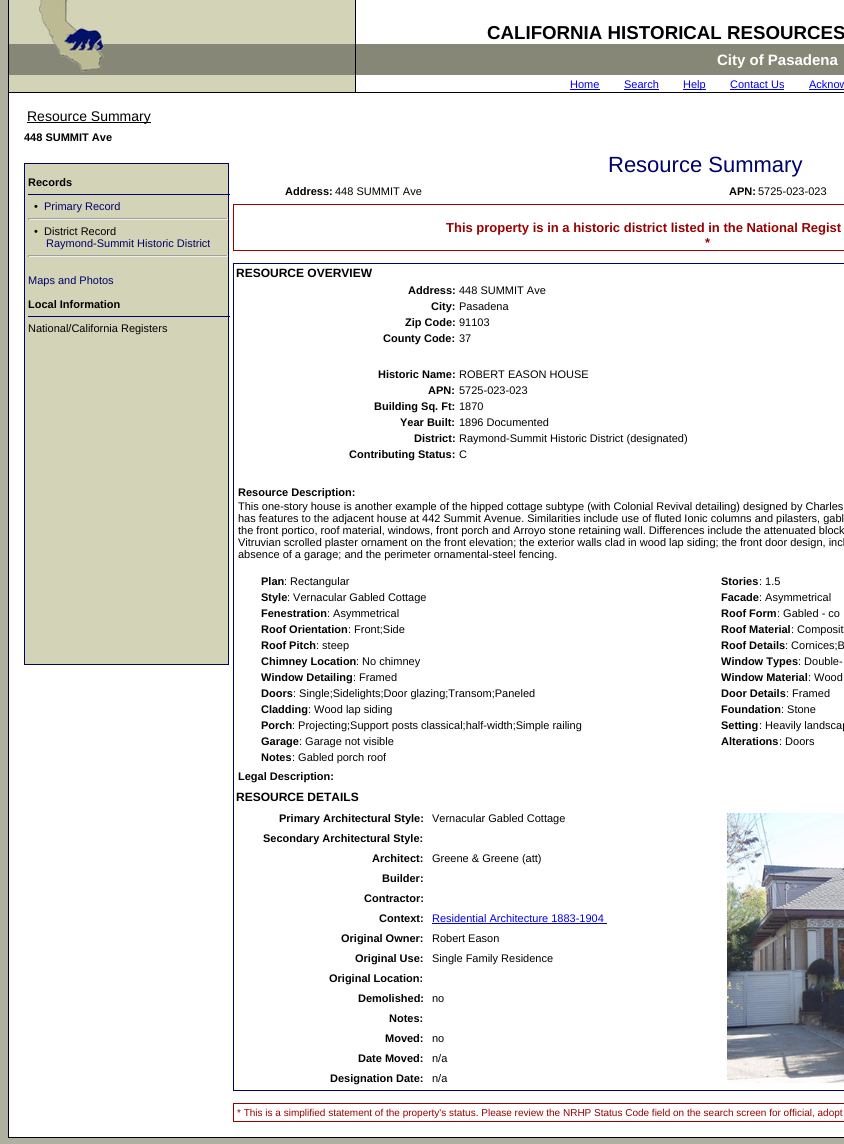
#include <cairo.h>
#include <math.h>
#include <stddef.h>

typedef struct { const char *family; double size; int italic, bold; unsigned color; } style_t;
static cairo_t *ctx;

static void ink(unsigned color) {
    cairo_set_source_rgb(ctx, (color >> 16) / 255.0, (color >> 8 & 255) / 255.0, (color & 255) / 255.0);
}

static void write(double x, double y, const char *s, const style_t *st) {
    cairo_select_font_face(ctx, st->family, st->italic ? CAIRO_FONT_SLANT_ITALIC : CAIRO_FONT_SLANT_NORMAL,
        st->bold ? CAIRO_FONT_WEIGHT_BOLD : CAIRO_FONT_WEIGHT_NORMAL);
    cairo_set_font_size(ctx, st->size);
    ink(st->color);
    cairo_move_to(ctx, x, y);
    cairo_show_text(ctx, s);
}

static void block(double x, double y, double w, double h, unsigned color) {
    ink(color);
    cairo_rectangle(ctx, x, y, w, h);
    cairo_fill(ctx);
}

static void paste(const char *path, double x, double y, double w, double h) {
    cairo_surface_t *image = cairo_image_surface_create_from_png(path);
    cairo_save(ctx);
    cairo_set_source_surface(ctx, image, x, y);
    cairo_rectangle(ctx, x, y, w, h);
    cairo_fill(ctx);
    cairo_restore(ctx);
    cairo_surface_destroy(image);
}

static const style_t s1 = {"Liberation Sans", 18.7, 0, 1, 0x000000};
static const style_t s2 = {"Liberation Sans", 15, 0, 1, 0xffffff};
static const style_t s3 = {"Liberation Sans", 11, 0, 0, 0x0000ee};
static const style_t s4 = {"Liberation Sans", 14, 0, 0, 0x000000};
static const style_t s5 = {"Liberation Sans", 11, 0, 1, 0x000000};
static const style_t s6 = {"Liberation Sans", 11, 0, 0, 0x000000};
static const style_t s7 = {"Liberation Sans", 11, 0, 0, 0x000169};
static const style_t s8 = {"Liberation Sans", 22, 0, 0, 0x000169};
static const style_t s9 = {"Liberation Sans", 13, 0, 1, 0x990000};
static const style_t s10 = {"Liberation Sans", 12, 0, 1, 0x000000};
static const style_t s11 = {"Liberation Sans", 10, 0, 0, 0x990000};

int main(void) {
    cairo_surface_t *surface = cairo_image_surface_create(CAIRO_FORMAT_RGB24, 844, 1144);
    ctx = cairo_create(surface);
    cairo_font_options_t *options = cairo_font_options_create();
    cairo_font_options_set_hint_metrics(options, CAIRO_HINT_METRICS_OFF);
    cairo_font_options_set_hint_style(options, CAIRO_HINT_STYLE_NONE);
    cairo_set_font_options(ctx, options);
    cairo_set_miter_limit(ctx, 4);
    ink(0xafb0a0);
    cairo_paint(ctx);
    cairo_rectangle(ctx, 8.5, -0.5, 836, 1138);
    ink(0x000000);
    cairo_set_line_width(ctx, 1);
    cairo_stroke(ctx);
    block(9, 0, 30, 44, 0xd3d3b7);
    paste("pic1.png", 39, 0, 66, 75);
    block(105, 0, 250, 44, 0xd3d3b7);
    block(9, 44, 30, 31, 0x868777);
    block(105, 44, 250, 31, 0x868777);
    block(355, 0, 1, 92, 0x000000);
    block(356, 0, 488, 44, 0xffffff);
    write(487, 39, "CALIFORNIA HISTORICAL RESOURCES", &s1);
    block(356, 44, 488, 31, 0x868777);
    write(717, 65, "City of Pasadena", &s2);
    block(9, 92, 835, 1, 0x000000);
    block(9, 75, 346, 17, 0xd3d3b7);
    block(356, 75, 488, 17, 0xffffff);
    write(570, 88, "Home", &s3);
    block(570, 89, 30, 1, 0x0000ee);
    write(624, 88, "Search", &s3);
    block(624, 89, 35, 1, 0x0000ee);
    block(683, 89, 23, 1, 0x0000ee);
    write(683, 88, "Help", &s3);
    write(730, 88, "Contact Us", &s3);
    block(730, 89, 54, 1, 0x0000ee);
    write(809, 88, "Acknow", &s3);
    block(809, 89, 35, 1, 0x0000ee);
    block(9, 93, 835, 1044, 0xffffff);
    block(27, 122, 124, 1, 0x000000);
    write(27, 121, "Resource Summary", &s4);
    write(24, 141, "448 SUMMIT Ave", &s5);
    ink(0xd3d3b8);
    cairo_rectangle(ctx, 24.5, 163.5, 204, 501);
    cairo_fill_preserve(ctx);
    ink(0x000169);
    cairo_stroke(ctx);
    write(28, 186, "Records", &s5);
    block(28, 194, 202, 1, 0x000169);
    write(34, 210, "•", &s6);
    write(44, 210, "Primary Record", &s7);
    block(28, 218, 200, 1, 0x9f9f9f);
    block(227, 218, 1, 2, 0xeeeeee);
    block(28, 219, 200, 1, 0xeeeeee);
    block(28, 218, 1, 2, 0x9f9f9f);
    write(34, 235, "•", &s6);
    write(44, 235, "District Record", &s6);
    write(46, 247, "Raymond-Summit Historic District", &s7);
    block(28, 255, 200, 1, 0x9f9f9f);
    block(227, 255, 1, 2, 0xeeeeee);
    block(28, 256, 200, 1, 0xeeeeee);
    block(28, 255, 1, 2, 0x9f9f9f);
    write(28, 284, "Maps and Photos", &s7);
    write(28, 308, "Local Information", &s5);
    block(28, 316, 202, 1, 0x000169);
    write(28, 332, "National/California Registers", &s6);
    write(608, 172, "Resource Summary", &s8);
    write(285, 195, "Address:", &s5);
    write(335, 195, "448 SUMMIT Ave", &s6);
    write(729, 195, "APN:", &s5);
    write(758, 195, "5725-023-023", &s6);
    cairo_rectangle(ctx, 233.5, 204.5, 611, 46);
    ink(0x990000);
    cairo_stroke(ctx);
    write(446, 232, "This property is in a historic district listed in the National Regist", &s9);
    write(705, 247, "*", &s9);
    cairo_rectangle(ctx, 233.5, 263.5, 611, 827);
    ink(0x000169);
    cairo_stroke(ctx);
    write(236, 277, "RESOURCE OVERVIEW", &s10);
    write(408, 294, "Address:", &s5);
    write(459, 294, "448 SUMMIT Ave", &s6);
    write(431, 310, "City:", &s5);
    write(459, 310, "Pasadena", &s6);
    write(405, 326, "Zip Code:", &s5);
    write(459, 326, "91103", &s6);
    write(383, 342, "County Code:", &s5);
    write(459, 342, "37", &s6);
    write(378, 378, "Historic Name:", &s5);
    write(459, 378, "ROBERT EASON HOUSE", &s6);
    write(428, 394, "APN:", &s5);
    write(459, 394, "5725-023-023", &s6);
    write(374, 410, "Building Sq. Ft:", &s5);
    write(459, 410, "1870", &s6);
    write(400, 426, "Year Built:", &s5);
    write(459, 426, "1896 Documented", &s6);
    write(414, 442, "District:", &s5);
    write(459, 442, "Raymond-Summit Historic District (designated)", &s6);
    write(349, 458, "Contributing Status:", &s5);
    write(459, 458, "C", &s6);
    write(238, 496, "Resource Description:", &s5);
    write(238, 510, "This one-story house is another example of the hipped cottage subtype (with Colonial Revival detailing) designed by Charles", &s6);
    write(238, 522, "has features to the adjacent house at 442 Summit Avenue. Similarities include use of fluted Ionic columns and pilasters, gabl", &s6);
    write(238, 534, "the front portico, roof material, windows, front porch and Arroyo stone retaining wall. Differences include the attenuated block", &s6);
    write(238, 546, "Vitruvian scrolled plaster ornament on the front elevation; the exterior walls clad in wood lap siding; the front door design, incl", &s6);
    write(238, 558, "absence of a garage; and the perimeter ornamental-steel fencing.", &s6);
    write(261, 585, "Plan", &s5);
    write(284, 585, ": Rectangular", &s6);
    write(721, 585, "Stories", &s5);
    write(759, 585, ": 1.5", &s6);
    write(261, 601, "Style", &s5);
    write(287, 601, ": Vernacular Gabled Cottage", &s6);
    write(721, 601, "Facade", &s5);
    write(759, 601, ": Asymmetrical", &s6);
    write(261, 617, "Fenestration", &s5);
    write(327, 617, ": Asymmetrical", &s6);
    write(721, 617, "Roof Form", &s5);
    write(777, 617, ": Gabled - co", &s6);
    write(261, 633, "Roof Orientation", &s5);
    write(348, 633, ": Front;Side", &s6);
    write(721, 633, "Roof Material", &s5);
    write(791, 633, ": Composit", &s6);
    write(261, 649, "Roof Pitch", &s5);
    write(316, 649, ": steep", &s6);
    write(721, 649, "Roof Details", &s5);
    write(785, 649, ": Cornices;B", &s6);
    write(261, 665, "Chimney Location", &s5);
    write(356, 665, ": No chimney", &s6);
    write(721, 665, "Window Types", &s5);
    write(798, 665, ": Double-", &s6);
    write(261, 681, "Window Detailing", &s5);
    write(353, 681, ": Framed", &s6);
    write(721, 681, "Window Material", &s5);
    write(808, 681, ": Wood", &s6);
    write(261, 697, "Doors", &s5);
    write(293, 697, ": Single;Sidelights;Door glazing;Transom;Paneled", &s6);
    write(721, 697, "Door Details", &s5);
    write(786, 697, ": Framed", &s6);
    write(261, 713, "Cladding", &s5);
    write(308, 713, ": Wood lap siding", &s6);
    write(721, 713, "Foundation", &s5);
    write(781, 713, ": Stone", &s6);
    write(261, 729, "Porch", &s5);
    write(292, 729, ": Projecting;Support posts classical;half-width;Simple railing", &s6);
    write(721, 729, "Setting", &s5);
    write(759, 729, ": Heavily landscap", &s6);
    write(261, 745, "Garage", &s5);
    write(299, 745, ": Garage not visible", &s6);
    write(721, 745, "Alterations", &s5);
    write(779, 745, ": Doors", &s6);
    write(261, 761, "Notes", &s5);
    write(292, 761, ": Gabled porch roof", &s6);
    write(238, 780, "Legal Description:", &s5);
    write(236, 801, "RESOURCE DETAILS", &s10);
    write(279, 822, "Primary Architectural Style:", &s5);
    write(432, 822, "Vernacular Gabled Cottage", &s6);
    write(263, 842, "Secondary Architectural Style:", &s5);
    write(372, 862, "Architect:", &s5);
    write(432, 862, "Greene & Greene (att)", &s6);
    write(382, 882, "Builder:", &s5);
    write(364, 902, "Contractor:", &s5);
    write(379, 922, "Context:", &s5);
    write(432, 922, "Residential Architecture 1883-1904", &s3);
    block(432, 923, 175, 1, 0x0000ee);
    write(341, 942, "Original Owner:", &s5);
    write(432, 942, "Robert Eason", &s6);
    write(355, 962, "Original Use:", &s5);
    write(432, 962, "Single Family Residence", &s6);
    write(329, 982, "Original Location:", &s5);
    write(358, 1002, "Demolished:", &s5);
    write(432, 1002, "no", &s6);
    write(389, 1022, "Notes:", &s5);
    write(385, 1042, "Moved:", &s5);
    write(432, 1042, "no", &s6);
    write(358, 1062, "Date Moved:", &s5);
    write(432, 1062, "n/a", &s6);
    write(330, 1082, "Designation Date:", &s5);
    write(432, 1082, "n/a", &s6);
    paste("pic2.png", 727, 813, 117, 270);
    cairo_rectangle(ctx, 233.5, 1103.5, 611, 18);
    ink(0x990000);
    cairo_stroke(ctx);
    write(237, 1116, "* This is a simplified statement of the property's status. Please review the NRHP Status Code field on the search screen for official, adopt", &s11);
    cairo_surface_write_to_png(surface, "screenshot.png");
    cairo_font_options_destroy(options);
    cairo_destroy(ctx);
    cairo_surface_destroy(surface);
    return 0;
}
